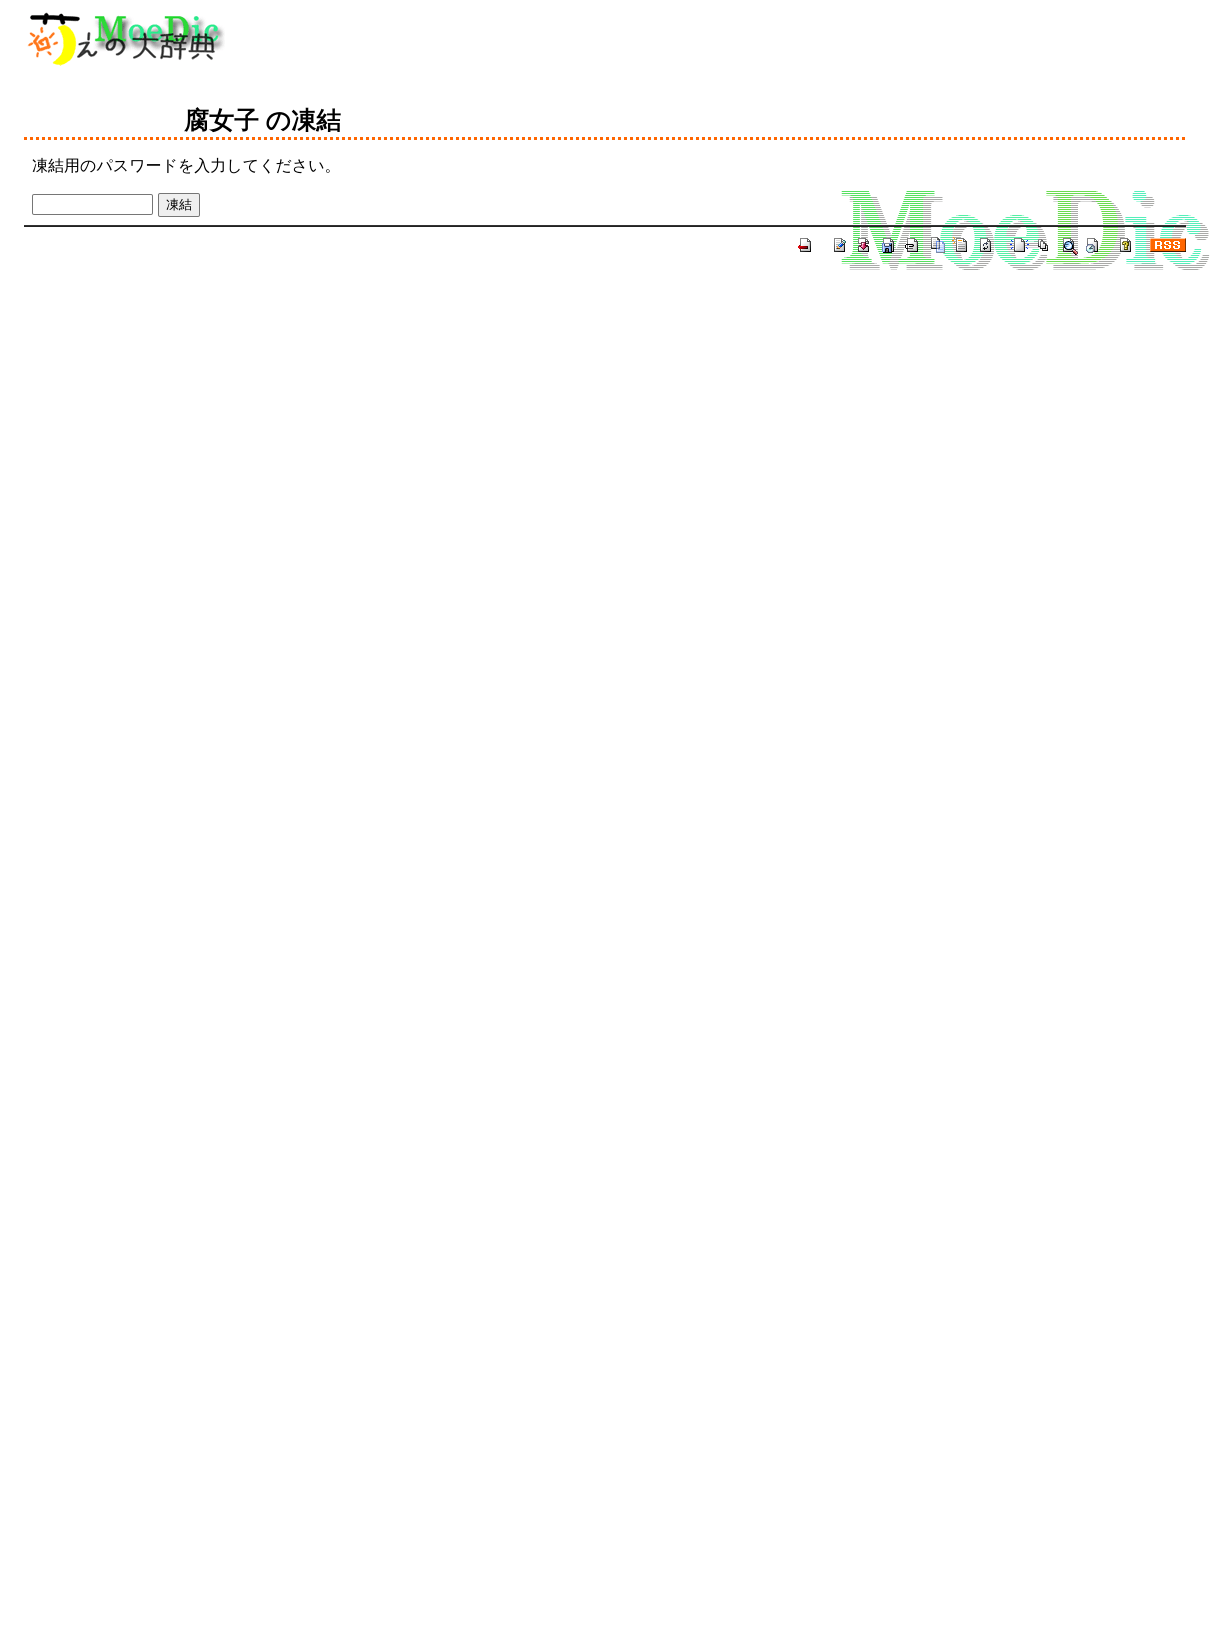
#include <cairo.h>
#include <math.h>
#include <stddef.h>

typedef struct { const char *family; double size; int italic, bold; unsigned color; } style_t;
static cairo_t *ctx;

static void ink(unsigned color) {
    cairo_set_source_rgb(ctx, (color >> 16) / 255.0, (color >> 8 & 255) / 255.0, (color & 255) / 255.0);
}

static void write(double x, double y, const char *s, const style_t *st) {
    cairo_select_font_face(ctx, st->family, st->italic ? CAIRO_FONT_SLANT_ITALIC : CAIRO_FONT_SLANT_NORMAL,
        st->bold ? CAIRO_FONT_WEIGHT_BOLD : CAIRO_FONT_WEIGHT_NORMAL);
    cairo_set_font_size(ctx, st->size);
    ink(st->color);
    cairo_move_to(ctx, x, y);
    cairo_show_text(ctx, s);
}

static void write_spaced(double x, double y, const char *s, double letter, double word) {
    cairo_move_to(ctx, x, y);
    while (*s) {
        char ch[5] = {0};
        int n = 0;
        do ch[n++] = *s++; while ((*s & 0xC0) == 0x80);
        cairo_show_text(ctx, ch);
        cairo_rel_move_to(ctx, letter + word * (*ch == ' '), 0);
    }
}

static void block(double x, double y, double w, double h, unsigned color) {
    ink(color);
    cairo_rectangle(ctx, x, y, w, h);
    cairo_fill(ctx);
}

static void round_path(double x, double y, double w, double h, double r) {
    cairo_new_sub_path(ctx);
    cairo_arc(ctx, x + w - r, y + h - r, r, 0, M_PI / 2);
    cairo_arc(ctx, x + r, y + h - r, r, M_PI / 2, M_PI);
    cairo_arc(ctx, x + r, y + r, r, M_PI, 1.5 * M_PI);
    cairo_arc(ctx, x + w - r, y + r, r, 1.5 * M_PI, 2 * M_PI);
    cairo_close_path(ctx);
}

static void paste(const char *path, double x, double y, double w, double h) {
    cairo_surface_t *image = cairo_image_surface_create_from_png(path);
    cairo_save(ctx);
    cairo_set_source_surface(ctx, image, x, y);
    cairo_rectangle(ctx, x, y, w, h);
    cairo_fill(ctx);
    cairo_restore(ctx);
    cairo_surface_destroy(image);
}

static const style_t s1 = {"WenQuanYi Zen Hei Medium", 16, 0, 0, 0x000000};
static const style_t s2 = {"WenQuanYi Zen Hei Medium", 13, 0, 0, 0x000000};

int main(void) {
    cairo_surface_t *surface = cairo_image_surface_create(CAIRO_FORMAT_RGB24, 1210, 1638);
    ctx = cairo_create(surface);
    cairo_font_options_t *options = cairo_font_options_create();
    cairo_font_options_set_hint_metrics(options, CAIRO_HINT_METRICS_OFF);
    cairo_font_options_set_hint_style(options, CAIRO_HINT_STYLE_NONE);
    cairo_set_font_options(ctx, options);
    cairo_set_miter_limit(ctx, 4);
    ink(0xffffff);
    cairo_paint(ctx);
    paste("pic1.png", 841, 191, 369, 79);
    paste("pic2.png", 27, 12, 198, 54);
    cairo_new_path(ctx);
    cairo_move_to(ctx, 24, 138.5);
    cairo_line_to(ctx, 1186, 138.5);
    ink(0xff6600);
    cairo_set_line_width(ctx, 3);
    cairo_set_dash(ctx, (double[]){3, 3}, 2, 0);
    cairo_stroke(ctx);
    cairo_select_font_face(ctx, "WenQuanYi Zen Hei", CAIRO_FONT_SLANT_NORMAL, CAIRO_FONT_WEIGHT_BOLD);
    cairo_set_font_size(ctx, 25);
    ink(0x000000);
    write_spaced(184, 129, "腐女子 の凍結", 0, -1);
    write(32, 171, "凍結用のパスワードを入力してください。", &s1);
    round_path(32.5, 194.5, 120, 20, 1.5);
    ink(0x767676);
    cairo_set_line_width(ctx, 1);
    cairo_set_dash(ctx, NULL, 0, 0);
    cairo_stroke(ctx);
    ink(0xefefef);
    round_path(158.5, 193.5, 41, 23, 1.5);
    cairo_fill_preserve(ctx);
    ink(0x767676);
    cairo_stroke(ctx);
    write(166, 209, "凍結", &s2);
    block(24, 225, 1162, 1, 0x333333);
    block(24, 226, 1162, 1, 0x222222);
    paste("pic3.png", 798, 238, 13, 14);
    paste("pic4.png", 834, 238, 12, 14);
    paste("pic5.png", 858, 238, 11, 14);
    paste("pic6.png", 882, 238, 12, 15);
    paste("pic7.png", 905, 238, 13, 14);
    paste("pic8.png", 931, 237, 14, 16);
    paste("pic9.png", 952, 237, 15, 15);
    paste("pic10.png", 980, 238, 11, 14);
    paste("pic11.png", 1010, 238, 19, 14);
    paste("pic12.png", 1038, 239, 10, 12);
    paste("pic13.png", 1063, 238, 15, 17);
    paste("pic14.png", 1086, 238, 12, 15);
    paste("pic15.png", 1120, 238, 11, 14);
    paste("pic16.png", 1150, 238, 36, 14);
    cairo_surface_write_to_png(surface, "screenshot.png");
    cairo_font_options_destroy(options);
    cairo_destroy(ctx);
    cairo_surface_destroy(surface);
    return 0;
}
